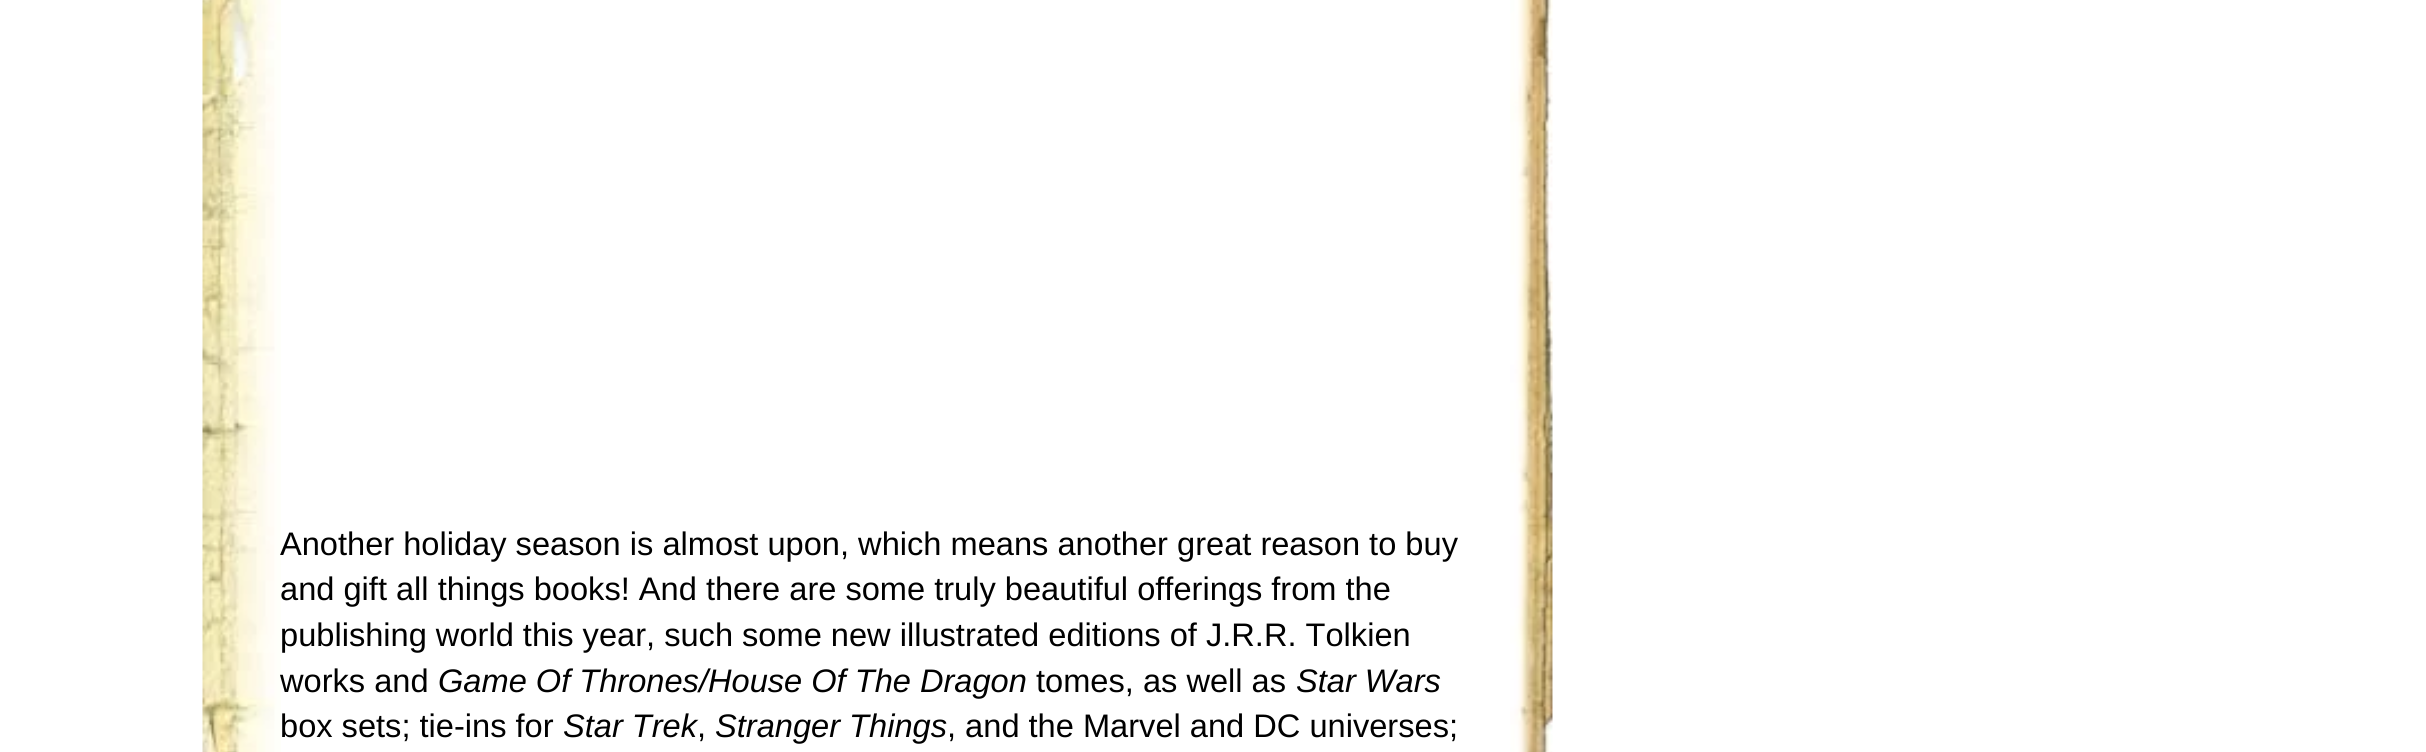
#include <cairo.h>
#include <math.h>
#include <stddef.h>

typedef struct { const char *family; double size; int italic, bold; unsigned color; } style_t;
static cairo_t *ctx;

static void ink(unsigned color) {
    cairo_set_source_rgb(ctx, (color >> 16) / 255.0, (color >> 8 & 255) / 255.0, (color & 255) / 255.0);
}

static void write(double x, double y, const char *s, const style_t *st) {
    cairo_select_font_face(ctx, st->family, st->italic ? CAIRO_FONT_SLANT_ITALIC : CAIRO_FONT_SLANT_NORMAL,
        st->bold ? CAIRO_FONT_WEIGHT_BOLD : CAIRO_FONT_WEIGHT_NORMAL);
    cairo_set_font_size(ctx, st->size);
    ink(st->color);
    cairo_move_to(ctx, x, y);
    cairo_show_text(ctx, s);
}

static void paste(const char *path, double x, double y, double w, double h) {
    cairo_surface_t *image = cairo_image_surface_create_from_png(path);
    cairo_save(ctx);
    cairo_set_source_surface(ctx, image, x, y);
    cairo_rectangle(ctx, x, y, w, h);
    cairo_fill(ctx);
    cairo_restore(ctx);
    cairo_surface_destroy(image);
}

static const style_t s1 = {"Liberation Sans", 32.6, 0, 0, 0x000000};
static const style_t s2 = {"Liberation Sans", 32.6, 1, 0, 0x000000};

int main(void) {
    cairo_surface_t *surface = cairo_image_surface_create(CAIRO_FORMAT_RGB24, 2426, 752);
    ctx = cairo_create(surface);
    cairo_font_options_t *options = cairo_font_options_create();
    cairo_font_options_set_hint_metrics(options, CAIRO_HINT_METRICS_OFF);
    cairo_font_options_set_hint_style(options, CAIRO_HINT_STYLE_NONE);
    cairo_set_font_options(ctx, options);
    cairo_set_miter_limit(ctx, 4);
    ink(0xffffff);
    cairo_paint(ctx);
    paste("pic1.png", 202, 0, 79, 752);
    write(280, 555, "Another holiday season is almost upon, which means another great reason to buy", &s1);
    write(280, 600, "and gift all things books! And there are some truly beautiful offerings from the", &s1);
    write(280, 646, "publishing world this year, such some new illustrated editions of J.R.R. Tolkien", &s1);
    write(280, 692, "works and", &s1);
    write(438, 692, "Game Of Thrones/House Of The Dragon", &s2);
    write(1036, 692, "tomes, as well as", &s1);
    write(1296, 692, "Star Wars", &s2);
    write(280, 737, "box sets; tie-ins for", &s1);
    write(563, 737, "Star Trek", &s2);
    write(697, 737, ",", &s1);
    write(715, 737, "Stranger Things", &s2);
    write(947, 737, ", and the Marvel and DC universes;", &s1);
    paste("pic2.png", 1510, 0, 43, 752);
    cairo_surface_write_to_png(surface, "screenshot.png");
    cairo_font_options_destroy(options);
    cairo_destroy(ctx);
    cairo_surface_destroy(surface);
    return 0;
}
